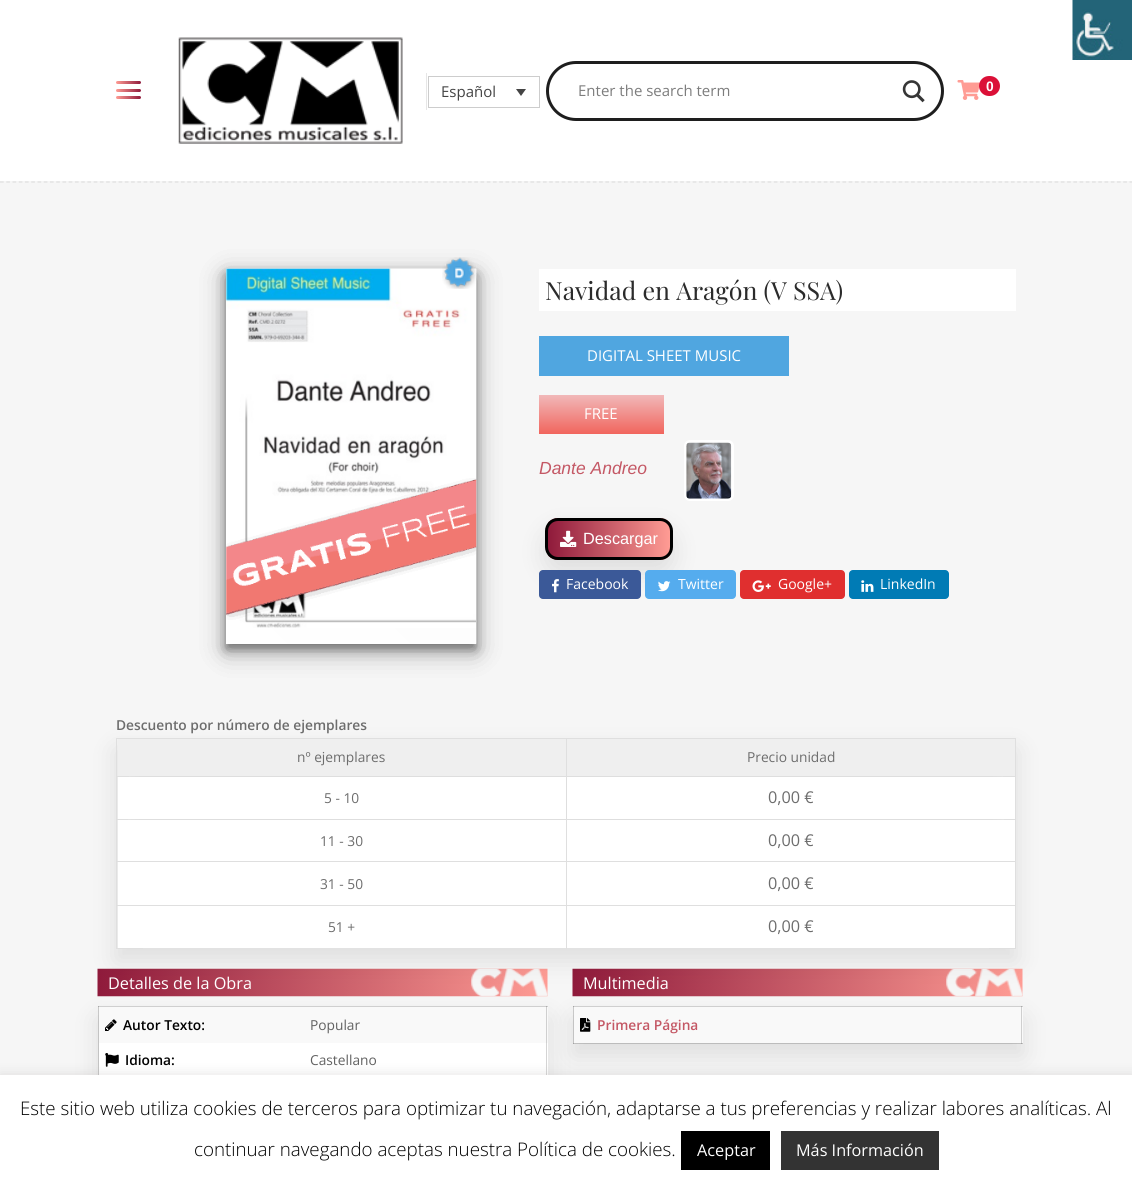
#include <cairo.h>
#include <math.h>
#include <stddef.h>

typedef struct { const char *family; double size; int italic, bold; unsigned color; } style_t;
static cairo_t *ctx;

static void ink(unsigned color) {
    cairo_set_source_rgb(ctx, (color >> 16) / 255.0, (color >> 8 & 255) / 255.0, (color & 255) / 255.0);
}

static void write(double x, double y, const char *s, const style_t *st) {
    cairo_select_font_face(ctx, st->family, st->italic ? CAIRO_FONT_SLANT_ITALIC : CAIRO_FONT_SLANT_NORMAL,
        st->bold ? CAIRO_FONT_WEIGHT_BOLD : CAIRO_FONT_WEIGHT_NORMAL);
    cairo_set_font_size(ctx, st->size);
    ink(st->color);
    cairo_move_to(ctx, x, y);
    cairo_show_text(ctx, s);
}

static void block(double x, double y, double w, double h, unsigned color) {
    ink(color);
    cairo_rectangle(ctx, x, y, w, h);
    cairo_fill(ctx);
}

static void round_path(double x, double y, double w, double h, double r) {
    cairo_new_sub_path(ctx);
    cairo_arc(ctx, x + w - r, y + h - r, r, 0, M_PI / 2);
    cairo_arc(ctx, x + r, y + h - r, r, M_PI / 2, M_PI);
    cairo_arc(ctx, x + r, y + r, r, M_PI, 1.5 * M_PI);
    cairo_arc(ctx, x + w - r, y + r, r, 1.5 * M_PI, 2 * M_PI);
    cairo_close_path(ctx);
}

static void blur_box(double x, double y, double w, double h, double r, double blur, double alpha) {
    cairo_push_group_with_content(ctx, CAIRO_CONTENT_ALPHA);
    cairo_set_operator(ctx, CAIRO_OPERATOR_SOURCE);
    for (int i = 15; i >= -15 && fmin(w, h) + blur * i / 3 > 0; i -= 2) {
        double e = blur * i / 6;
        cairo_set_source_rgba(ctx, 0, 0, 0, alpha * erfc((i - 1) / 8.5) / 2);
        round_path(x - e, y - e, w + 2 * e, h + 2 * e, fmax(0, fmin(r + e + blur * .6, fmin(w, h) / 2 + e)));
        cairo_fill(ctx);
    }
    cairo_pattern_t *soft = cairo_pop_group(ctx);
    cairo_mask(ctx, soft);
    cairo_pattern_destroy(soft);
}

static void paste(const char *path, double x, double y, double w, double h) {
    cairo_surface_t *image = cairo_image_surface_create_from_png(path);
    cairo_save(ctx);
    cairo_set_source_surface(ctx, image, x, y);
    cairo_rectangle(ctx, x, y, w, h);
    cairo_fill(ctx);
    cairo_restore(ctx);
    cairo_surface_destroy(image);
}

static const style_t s1 = {"Open Sans", 15, 0, 0, 0x444444};
static const style_t s2 = {"Open Sans", 15, 0, 0, 0x7d7d7d};
static const style_t s3 = {"Liberation Sans", 13.75, 0, 1, 0xffffff};
static const style_t s4 = {"Playfair Display", 25, 0, 0, 0x2b2b2b};
static const style_t s5 = {"Open Sans", 15, 0, 0, 0xffffff};
static const style_t s6 = {"Liberation Sans", 17.5, 1, 0, 0xc45865};
static const style_t s7 = {"Liberation Sans", 16.25, 0, 0, 0xffffff};
static const style_t s8 = {"Open Sans", 14, 0, 0, 0xffffff};
static const style_t s9 = {"Open Sans SemiBold", 13.75, 0, 0, 0x6d6d6d};
static const style_t s10 = {"Open Sans", 13.75, 0, 0, 0x6d6d6d};
static const style_t s11 = {"Open Sans", 16.25, 0, 0, 0x6d6d6d};
static const style_t s12 = {"Open Sans", 16.25, 0, 0, 0xffffff};
static const style_t s13 = {"Open Sans SemiBold", 13.75, 0, 0, 0x000000};
static const style_t s14 = {"Open Sans", 13.75, 0, 0, 0x616161};
static const style_t s15 = {"Open Sans SemiBold", 13.75, 0, 0, 0xc45865};
static const style_t s16 = {"Open Sans Light", 18.75, 0, 0, 0x000000};

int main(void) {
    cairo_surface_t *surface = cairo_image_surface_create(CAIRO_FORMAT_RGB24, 1132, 1185);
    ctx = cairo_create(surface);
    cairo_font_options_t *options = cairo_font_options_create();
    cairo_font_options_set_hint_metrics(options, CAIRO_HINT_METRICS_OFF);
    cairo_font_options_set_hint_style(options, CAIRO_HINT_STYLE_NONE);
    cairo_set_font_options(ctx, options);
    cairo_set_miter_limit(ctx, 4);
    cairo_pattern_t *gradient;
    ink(0xf6f6f6);
    cairo_paint(ctx);
    block(0, 0, 1132, 181, 0xffffff);
    paste("pic1.png", 1072, 0, 60, 60);
    gradient = cairo_pattern_create_linear(141, 90, 116, 90);
    cairo_pattern_add_color_stop_rgba(gradient, 0, 0.561, 0.102, 0.231, 1);
    cairo_pattern_add_color_stop_rgba(gradient, 1, 1, 0.612, 0.58, 1);
    cairo_set_source(ctx, gradient);
    cairo_pattern_destroy(gradient);
    round_path(116, 89, 25, 3, 1.5);
    cairo_fill(ctx);
    gradient = cairo_pattern_create_linear(141, 83, 116, 83);
    cairo_pattern_add_color_stop_rgba(gradient, 0, 0.561, 0.102, 0.231, 1);
    cairo_pattern_add_color_stop_rgba(gradient, 1, 1, 0.612, 0.58, 1);
    cairo_set_source(ctx, gradient);
    cairo_pattern_destroy(gradient);
    round_path(116, 81, 25, 3, 1.5);
    cairo_fill(ctx);
    gradient = cairo_pattern_create_linear(141, 98, 116, 98);
    cairo_pattern_add_color_stop_rgba(gradient, 0, 0.561, 0.102, 0.231, 1);
    cairo_pattern_add_color_stop_rgba(gradient, 1, 1, 0.612, 0.58, 1);
    cairo_set_source(ctx, gradient);
    cairo_pattern_destroy(gradient);
    round_path(116, 96, 25, 3, 1.5);
    cairo_fill(ctx);
    paste("pic2.png", 178, 37, 225, 107);
    block(426, 73, 1, 37, 0xe6e6e6);
    cairo_rectangle(ctx, 428.5, 76.5, 111, 31);
    ink(0xcdcdcd);
    cairo_set_line_width(ctx, 1);
    cairo_stroke(ctx);
    write(441, 97, "Español", &s1);
    cairo_new_path(ctx);
    cairo_move_to(ctx, 516, 89);
    cairo_line_to(ctx, 526, 89);
    cairo_line_to(ctx, 521, 96);
    cairo_close_path(ctx);
    cairo_fill(ctx);
    round_path(547.5, 62.5, 395, 57, 28.5);
    ink(0x1e1e1e);
    cairo_set_line_width(ctx, 3);
    cairo_stroke(ctx);
    write(578, 96, "Enter the search term", &s2);
    paste("pic3.png", 902, 80, 23, 23);
    paste("pic4.png", 957, 80, 23, 20);
    ink(0xdb1037);
    round_path(979, 76, 21, 20, 10);
    cairo_fill(ctx);
    write(986, 91, "0", &s3);
    cairo_new_path(ctx);
    cairo_move_to(ctx, 0, 182);
    cairo_line_to(ctx, 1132.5, 182);
    ink(0xe0e0e0);
    cairo_set_line_width(ctx, 1.2);
    cairo_set_dash(ctx, (double[]){3.75, 2.49}, 2, 0);
    cairo_stroke(ctx);
    ink(0x000000);
    blur_box(226, 276, 250, 375, 0, 12.5, 0.19);
    blur_box(226, 274, 250, 375, 0, 5, 0.2);
    paste("pic5.png", 227, 268, 250, 376);
    blur_box(226, 276, 250, 375, 0, 12.5, 0.19);
    blur_box(226, 274, 250, 375, 0, 5, 0.2);
    paste("pic6.png", 226, 268, 251, 376);
    gradient = cairo_pattern_create_linear(195, 613, 507, 300);
    cairo_pattern_add_color_stop_rgba(gradient, 0, 1, 1, 1, 1);
    cairo_pattern_add_color_stop_rgba(gradient, 1, 0.98, 0.98, 0.98, 1);
    cairo_set_source(ctx, gradient);
    cairo_pattern_destroy(gradient);
    cairo_rectangle(ctx, 226, 269, 250, 375);
    cairo_fill(ctx);
    paste("pic7.png", 226, 268, 250, 360);
    paste("pic8.png", 442, 257, 34, 32);
    paste("pic9.png", 226, 478, 251, 142);
    block(539, 269, 477, 42, 0xffffff);
    write(545, 300, "Navidad en Aragón (V SSA)", &s4);
    block(539, 336, 250, 40, 0x50a6e0);
    write(587, 361, "DIGITAL SHEET MUSIC", &s5);
    gradient = cairo_pattern_create_linear(601, 395, 601, 434);
    cairo_pattern_add_color_stop_rgba(gradient, 0, 0.945, 0.722, 0.725, 1);
    cairo_pattern_add_color_stop_rgba(gradient, 1, 0.945, 0.396, 0.365, 1);
    cairo_set_source(ctx, gradient);
    cairo_pattern_destroy(gradient);
    cairo_rectangle(ctx, 539, 395, 125, 39);
    cairo_fill(ctx);
    write(584, 419, "FREE", &s5);
    write(539, 474, "Dante Andreo", &s6);
    round_path(685.5, 441.5, 47, 58, 4.5);
    ink(0xffffff);
    cairo_set_line_width(ctx, 3);
    cairo_set_dash(ctx, NULL, 0, 0);
    cairo_stroke(ctx);
    paste("pic10.png", 686, 442, 46, 57);
    ink(0x000000);
    blur_box(545, 530, 128, 43, 13, 12.5, 0.1);
    cairo_save(ctx);
    round_path(545, 518, 128, 42, 13);
    cairo_clip(ctx);
    gradient = cairo_pattern_create_linear(548, 539, 670, 539);
    cairo_pattern_add_color_stop_rgba(gradient, 0, 0.561, 0.102, 0.231, 1);
    cairo_pattern_add_color_stop_rgba(gradient, 1, 1, 0.612, 0.58, 1);
    cairo_set_source(ctx, gradient);
    cairo_pattern_destroy(gradient);
    cairo_rectangle(ctx, 548, 518, 122, 42);
    cairo_fill(ctx);
    cairo_restore(ctx);
    round_path(546.5, 519.5, 125, 39, 11.5);
    ink(0x000000);
    cairo_stroke(ctx);
    paste("pic11.png", 560, 530, 17, 17);
    write(583, 544, "Descargar", &s7);
    ink(0x3b5998);
    round_path(539, 570, 102, 29, 4);
    cairo_fill(ctx);
    paste("pic12.png", 552, 579, 7, 14);
    write(566, 589, "Facebook", &s8);
    ink(0x55acee);
    round_path(645, 570, 91, 29, 4);
    cairo_fill(ctx);
    paste("pic13.png", 658, 581, 13, 11);
    write(678, 589, "Twitter", &s8);
    ink(0xe02f2f);
    round_path(740, 570, 105, 29, 4);
    cairo_fill(ctx);
    paste("pic14.png", 752, 580, 19, 12);
    write(778, 589, "Google+", &s8);
    ink(0x007bb5);
    round_path(849, 570, 100, 29, 4);
    cairo_fill(ctx);
    paste("pic15.png", 861, 580, 13, 12);
    write(880, 589, "LinkedIn", &s8);
    paste("pic16.png", 97, 968, 451, 29);
    ink(0x000000);
    blur_box(98, 1019, 450, 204, 0, 12.5, 0.1);
    paste("pic19.png", 572, 968, 451, 29);
    blur_box(116, 750, 900, 211, 0, 12.5, 0.1);
    write(116, 730, "Descuento por número de ejemplares", &s9);
    block(118, 739, 897, 37, 0xefefef);
    block(566, 738, 450, 1, 0xdfdfdf);
    block(566, 738, 1, 40, 0xdfdfdf);
    block(116, 738, 452, 1, 0xdfdfdf);
    block(116, 776, 13, 1, 0xdfdfdf);
    block(116, 819, 12, 1, 0xdfdfdf);
    block(118, 820, 897, 128, 0xffffff);
    block(566, 861, 450, 1, 0xdfdfdf);
    block(566, 905, 450, 1, 0xdfdfdf);
    block(566, 905, 1, 44, 0xdfdfdf);
    block(116, 905, 452, 1, 0xdfdfdf);
    block(566, 861, 1, 45, 0xdfdfdf);
    block(116, 861, 452, 1, 0xdfdfdf);
    block(116, 948, 27, 1, 0xdfdfdf);
    block(116, 905, 1, 44, 0xdfdfdf);
    block(116, 861, 1, 45, 0xdfdfdf);
    block(116, 819, 1, 44, 0xdfdfdf);
    block(116, 776, 1, 44, 0xdfdfdf);
    block(116, 738, 1, 40, 0xdfdfdf);
    write(297, 762, "nº ejemplares", &s10);
    block(1003, 776, 13, 1, 0xdfdfdf);
    block(1004, 819, 12, 1, 0xdfdfdf);
    block(1015, 905, 1, 44, 0xdfdfdf);
    block(1015, 861, 1, 45, 0xdfdfdf);
    block(1015, 819, 1, 44, 0xdfdfdf);
    block(1015, 776, 1, 44, 0xdfdfdf);
    block(1015, 738, 1, 40, 0xdfdfdf);
    write(747, 762, "Precio unidad", &s10);
    block(118, 777, 448, 42, 0xffffff);
    write(324, 803, "5 - 10", &s10);
    block(567, 777, 448, 42, 0xffffff);
    write(768, 803, "0,00 €", &s11);
    write(320, 846, "11 - 30", &s10);
    block(566, 819, 1, 44, 0xdfdfdf);
    write(768, 846, "0,00 €", &s11);
    write(320, 889, "31 - 50", &s10);
    write(768, 889, "0,00 €", &s11);
    write(328, 932, "51 +", &s10);
    block(989, 948, 27, 1, 0xdfdfdf);
    write(768, 932, "0,00 €", &s11);
    write(108, 989, "Detalles de la Obra", &s12);
    block(99, 1006, 449, 37, 0xf9f9f9);
    cairo_set_source_rgba(ctx, 0, 0, 0, 0.17);
    cairo_rectangle(ctx, 98, 1006, 450, 1);
    cairo_fill(ctx);
    block(99, 1043, 449, 32, 0xffffff);
    cairo_set_source_rgba(ctx, 0, 0, 0, 0.17);
    cairo_rectangle(ctx, 546, 1006, 1, 69);
    cairo_fill(ctx);
    cairo_rectangle(ctx, 98, 1006, 1, 69);
    cairo_fill(ctx);
    paste("pic17.png", 105, 1019, 12, 12);
    write(123, 1030, "Autor Texto:", &s13);
    write(310, 1030, "Popular", &s14);
    paste("pic18.png", 105, 1053, 14, 14);
    write(125, 1065, "Idioma:", &s13);
    write(310, 1065, "Castellano", &s14);
    ink(0x000000);
    blur_box(573, 1019, 450, 37, 0, 12.5, 0.1);
    write(583, 989, "Multimedia", &s12);
    block(574, 1006, 449, 37, 0xf9f9f9);
    cairo_set_source_rgba(ctx, 0, 0, 0, 0.17);
    cairo_rectangle(ctx, 573, 1006, 450, 1);
    cairo_fill(ctx);
    cairo_rectangle(ctx, 1021, 1006, 1, 38);
    cairo_fill(ctx);
    cairo_rectangle(ctx, 573, 1043, 450, 1);
    cairo_fill(ctx);
    cairo_rectangle(ctx, 573, 1006, 1, 38);
    cairo_fill(ctx);
    paste("pic20.png", 580, 1018, 11, 14);
    write(597, 1030, "Primera Página", &s15);
    ink(0xacabab);
    blur_box(0, 1074, 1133, 110, 0, 6, 0.3);
    block(0, 1075, 1132, 110, 0xffffff);
    write(20, 1115, "Este sitio web utiliza cookies de terceros para optimizar tu navegación, adaptarse a tus preferencias y realizar labores analíticas. Al", &s16);
    write(194, 1156, "continuar navegando aceptas nuestra Política de cookies.", &s16);
    block(681, 1131, 89, 39, 0x000000);
    write(697, 1156, "Aceptar", &s12);
    block(781, 1131, 158, 39, 0x333333);
    write(796, 1156, "Más Información", &s12);
    cairo_surface_write_to_png(surface, "screenshot.png");
    cairo_font_options_destroy(options);
    cairo_destroy(ctx);
    cairo_surface_destroy(surface);
    return 0;
}
